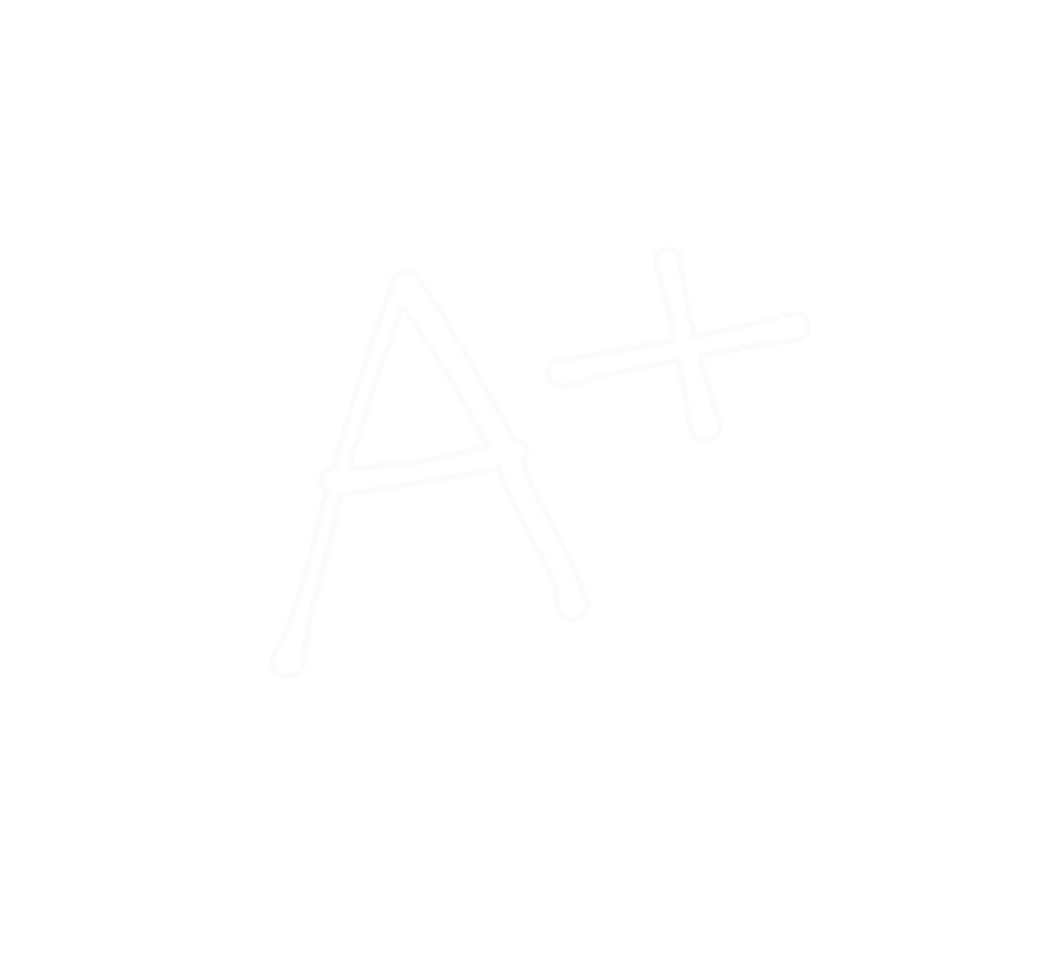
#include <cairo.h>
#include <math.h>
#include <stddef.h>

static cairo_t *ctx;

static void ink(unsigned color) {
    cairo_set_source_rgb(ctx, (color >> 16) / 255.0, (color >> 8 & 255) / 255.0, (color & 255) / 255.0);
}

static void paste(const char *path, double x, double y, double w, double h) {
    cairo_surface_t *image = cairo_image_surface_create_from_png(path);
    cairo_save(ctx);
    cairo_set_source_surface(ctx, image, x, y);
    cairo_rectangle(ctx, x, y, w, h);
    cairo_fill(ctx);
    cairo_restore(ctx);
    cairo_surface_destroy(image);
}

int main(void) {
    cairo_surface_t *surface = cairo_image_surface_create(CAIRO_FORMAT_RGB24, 1039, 960);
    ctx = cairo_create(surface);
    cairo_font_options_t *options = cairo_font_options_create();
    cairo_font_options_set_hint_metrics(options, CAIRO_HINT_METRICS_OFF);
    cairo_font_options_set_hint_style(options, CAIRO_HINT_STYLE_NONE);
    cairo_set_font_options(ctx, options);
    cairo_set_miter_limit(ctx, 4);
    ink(0xffffff);
    cairo_paint(ctx);
    paste("pic1.png", 269, 247, 541, 431);
    cairo_surface_write_to_png(surface, "screenshot.png");
    cairo_font_options_destroy(options);
    cairo_destroy(ctx);
    cairo_surface_destroy(surface);
    return 0;
}
